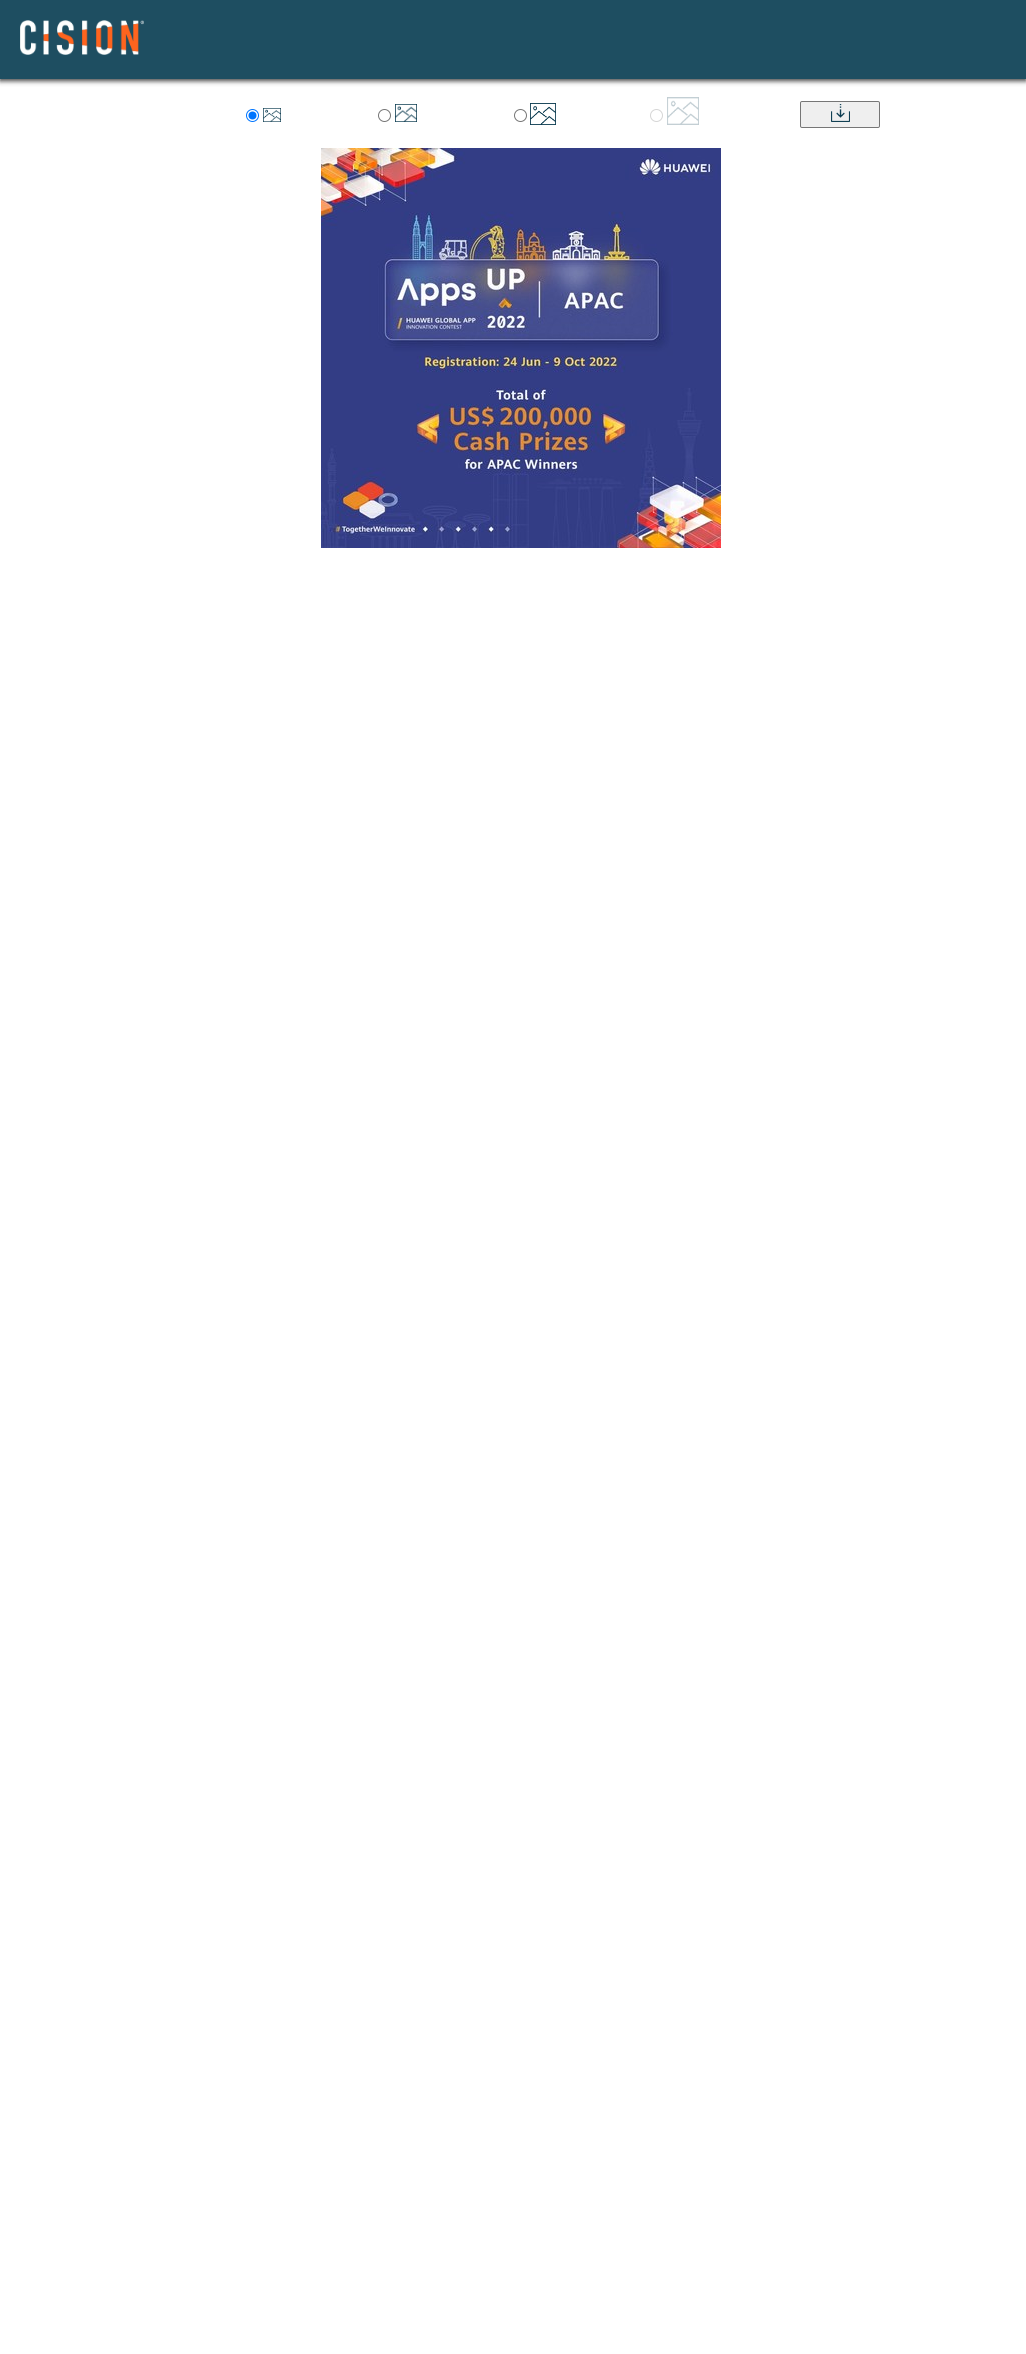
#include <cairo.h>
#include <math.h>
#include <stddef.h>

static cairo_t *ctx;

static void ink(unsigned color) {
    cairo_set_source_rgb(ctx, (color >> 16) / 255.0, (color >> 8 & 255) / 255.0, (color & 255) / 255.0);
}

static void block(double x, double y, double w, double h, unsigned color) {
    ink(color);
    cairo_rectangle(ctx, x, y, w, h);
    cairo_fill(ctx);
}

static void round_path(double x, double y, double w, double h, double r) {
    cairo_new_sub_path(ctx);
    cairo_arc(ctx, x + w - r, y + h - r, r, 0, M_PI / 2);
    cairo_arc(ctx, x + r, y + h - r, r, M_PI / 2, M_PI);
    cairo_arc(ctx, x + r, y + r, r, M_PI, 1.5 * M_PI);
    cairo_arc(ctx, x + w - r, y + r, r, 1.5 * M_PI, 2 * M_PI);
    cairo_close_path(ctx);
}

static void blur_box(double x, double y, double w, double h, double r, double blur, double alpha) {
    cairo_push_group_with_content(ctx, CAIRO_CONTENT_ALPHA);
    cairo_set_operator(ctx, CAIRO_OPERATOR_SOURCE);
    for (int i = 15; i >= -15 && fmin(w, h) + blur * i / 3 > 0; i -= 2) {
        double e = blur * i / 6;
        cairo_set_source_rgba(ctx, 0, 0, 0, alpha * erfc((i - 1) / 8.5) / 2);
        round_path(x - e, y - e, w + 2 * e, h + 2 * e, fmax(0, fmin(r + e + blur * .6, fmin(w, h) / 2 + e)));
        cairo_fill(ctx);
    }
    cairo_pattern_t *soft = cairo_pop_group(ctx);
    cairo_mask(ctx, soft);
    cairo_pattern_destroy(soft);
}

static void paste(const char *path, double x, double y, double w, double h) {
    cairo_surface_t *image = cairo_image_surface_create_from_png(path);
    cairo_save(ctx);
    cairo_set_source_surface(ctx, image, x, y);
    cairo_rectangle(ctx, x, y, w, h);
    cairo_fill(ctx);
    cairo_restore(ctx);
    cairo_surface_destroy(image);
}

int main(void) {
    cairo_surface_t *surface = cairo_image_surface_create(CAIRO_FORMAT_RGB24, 1026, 2354);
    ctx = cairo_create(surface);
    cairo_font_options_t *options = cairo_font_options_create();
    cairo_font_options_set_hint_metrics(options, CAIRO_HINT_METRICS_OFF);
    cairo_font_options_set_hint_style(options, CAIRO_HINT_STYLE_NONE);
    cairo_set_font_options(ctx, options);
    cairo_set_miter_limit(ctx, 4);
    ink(0xffffff);
    cairo_paint(ctx);
    ink(0x000000);
    blur_box(0, 2, 1026, 79, 0, 2.5, 0.75);
    block(0, 0, 1026, 79, 0x1e4e61);
    paste("pic1.png", 20, 20, 124, 35);
    cairo_arc(ctx, 252.5, 115.5, 6, 0, 2 * M_PI);
    ink(0x0075ff);
    cairo_set_line_width(ctx, 1);
    cairo_stroke(ctx);
    cairo_arc(ctx, 252.5, 115.5, 4, 0, 2 * M_PI);
    cairo_fill(ctx);
    paste("pic2.png", 263, 108, 18, 14);
    cairo_arc(ctx, 384.5, 115.5, 6, 0, 2 * M_PI);
    ink(0x767676);
    cairo_stroke(ctx);
    paste("pic3.png", 395, 104, 22, 18);
    cairo_arc(ctx, 520.5, 115.5, 6, 0, 2 * M_PI);
    cairo_stroke(ctx);
    paste("pic4.png", 530, 103, 26, 22);
    cairo_arc(ctx, 656.5, 115.5, 6, 0, 2 * M_PI);
    ink(0xd6d6d6);
    cairo_stroke(ctx);
    paste("pic5.png", 667, 97, 32, 28);
    ink(0xefefef);
    round_path(800.5, 101.5, 79, 26, 1.5);
    cairo_fill_preserve(ctx);
    ink(0x767676);
    cairo_stroke(ctx);
    paste("pic6.png", 831, 104, 19, 18);
    paste("pic7.png", 321, 148, 400, 400);
    cairo_surface_write_to_png(surface, "screenshot.png");
    cairo_font_options_destroy(options);
    cairo_destroy(ctx);
    cairo_surface_destroy(surface);
    return 0;
}
